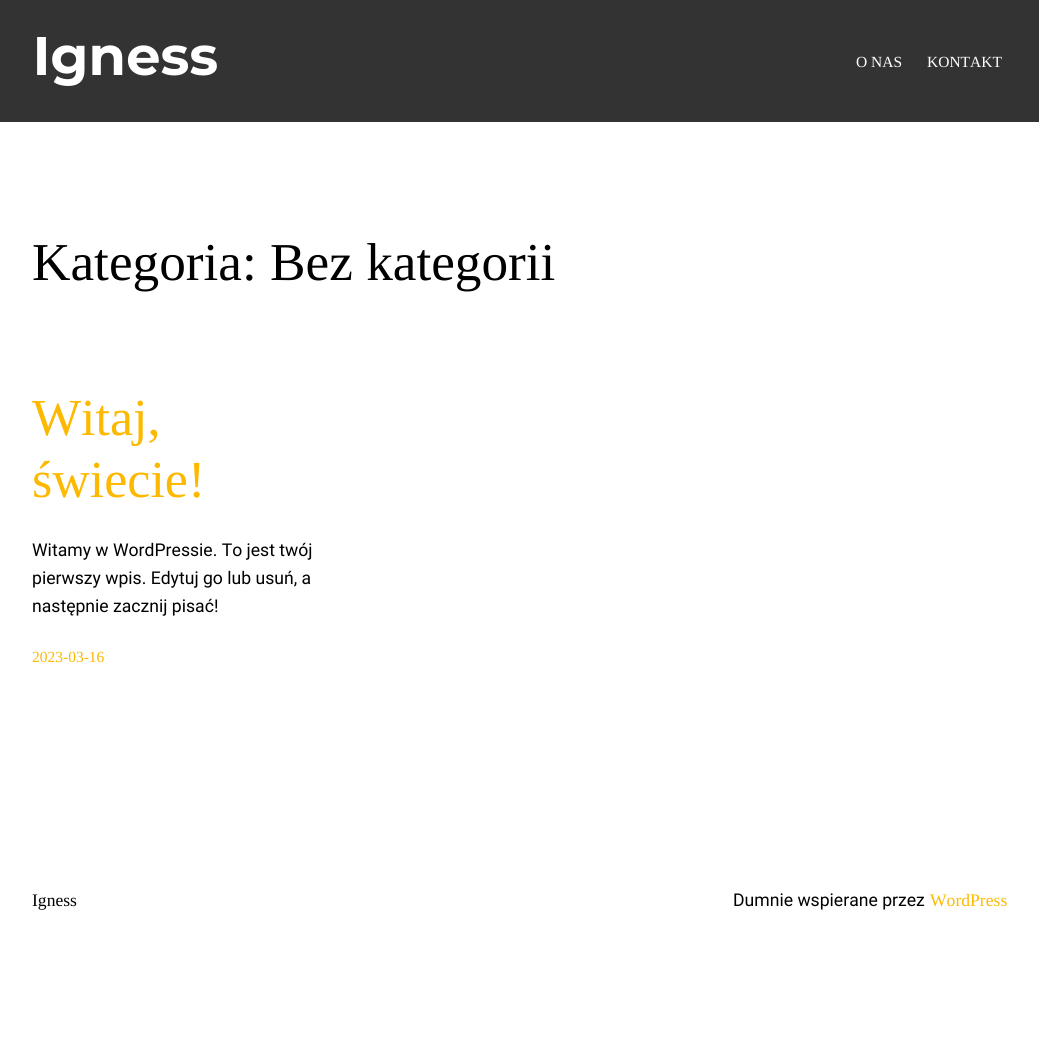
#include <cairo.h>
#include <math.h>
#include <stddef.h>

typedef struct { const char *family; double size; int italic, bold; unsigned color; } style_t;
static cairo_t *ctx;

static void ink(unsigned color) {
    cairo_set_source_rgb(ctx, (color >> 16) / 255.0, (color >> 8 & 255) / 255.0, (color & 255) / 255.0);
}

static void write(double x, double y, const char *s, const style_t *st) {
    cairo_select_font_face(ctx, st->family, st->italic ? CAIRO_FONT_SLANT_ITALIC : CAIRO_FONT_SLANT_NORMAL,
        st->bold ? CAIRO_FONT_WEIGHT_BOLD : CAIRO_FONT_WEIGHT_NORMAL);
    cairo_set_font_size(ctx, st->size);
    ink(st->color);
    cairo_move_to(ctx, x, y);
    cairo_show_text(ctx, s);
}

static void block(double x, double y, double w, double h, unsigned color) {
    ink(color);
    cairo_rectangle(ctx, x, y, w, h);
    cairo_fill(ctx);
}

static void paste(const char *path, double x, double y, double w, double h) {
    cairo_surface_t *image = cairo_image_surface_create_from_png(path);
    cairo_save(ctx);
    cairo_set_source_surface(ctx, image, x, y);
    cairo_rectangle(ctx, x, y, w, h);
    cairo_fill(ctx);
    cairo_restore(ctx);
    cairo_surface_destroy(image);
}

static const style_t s1 = {"Liberation Serif", 15.5, 0, 0, 0xffffff};
static const style_t s2 = {"Liberation Serif", 53.25, 0, 0, 0x000000};
static const style_t s3 = {"Liberation Serif", 52, 0, 0, 0xfcb900};
static const style_t s4 = {"Roboto", 17.6, 0, 0, 0x000000};
static const style_t s5 = {"Liberation Serif", 15.5, 0, 0, 0xfcb900};
static const style_t s6 = {"Liberation Serif", 17.6, 0, 0, 0x000000};
static const style_t s7 = {"Liberation Serif", 17.6, 0, 0, 0xfcb900};

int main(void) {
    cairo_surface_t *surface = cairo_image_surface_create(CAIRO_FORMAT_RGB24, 1039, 1042);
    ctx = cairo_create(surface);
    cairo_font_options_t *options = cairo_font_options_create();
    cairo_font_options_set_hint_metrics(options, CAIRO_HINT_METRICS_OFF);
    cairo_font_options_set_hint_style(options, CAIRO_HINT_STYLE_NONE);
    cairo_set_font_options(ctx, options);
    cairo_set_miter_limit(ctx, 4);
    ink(0xffffff);
    cairo_paint(ctx);
    block(0, 0, 1039, 122, 0x333333);
    paste("pic1.png", 37, 37, 180, 49);
    write(856, 67, "O NAS", &s1);
    write(927, 67, "KONTAKT", &s1);
    write(32, 280, "Kategoria: Bez kategorii", &s2);
    write(32, 435, "Witaj,", &s3);
    write(32, 497, "świecie!", &s3);
    write(32, 556, "Witamy w WordPressie. To jest twój", &s4);
    write(32, 584, "pierwszy wpis. Edytuj go lub usuń, a", &s4);
    write(32, 612, "następnie zacznij pisać!", &s4);
    write(32, 662, "2023-03-16", &s5);
    write(32, 906, "Igness", &s6);
    write(733, 906, "Dumnie wspierane przez", &s4);
    write(930, 906, "WordPress", &s7);
    cairo_surface_write_to_png(surface, "screenshot.png");
    cairo_font_options_destroy(options);
    cairo_destroy(ctx);
    cairo_surface_destroy(surface);
    return 0;
}
